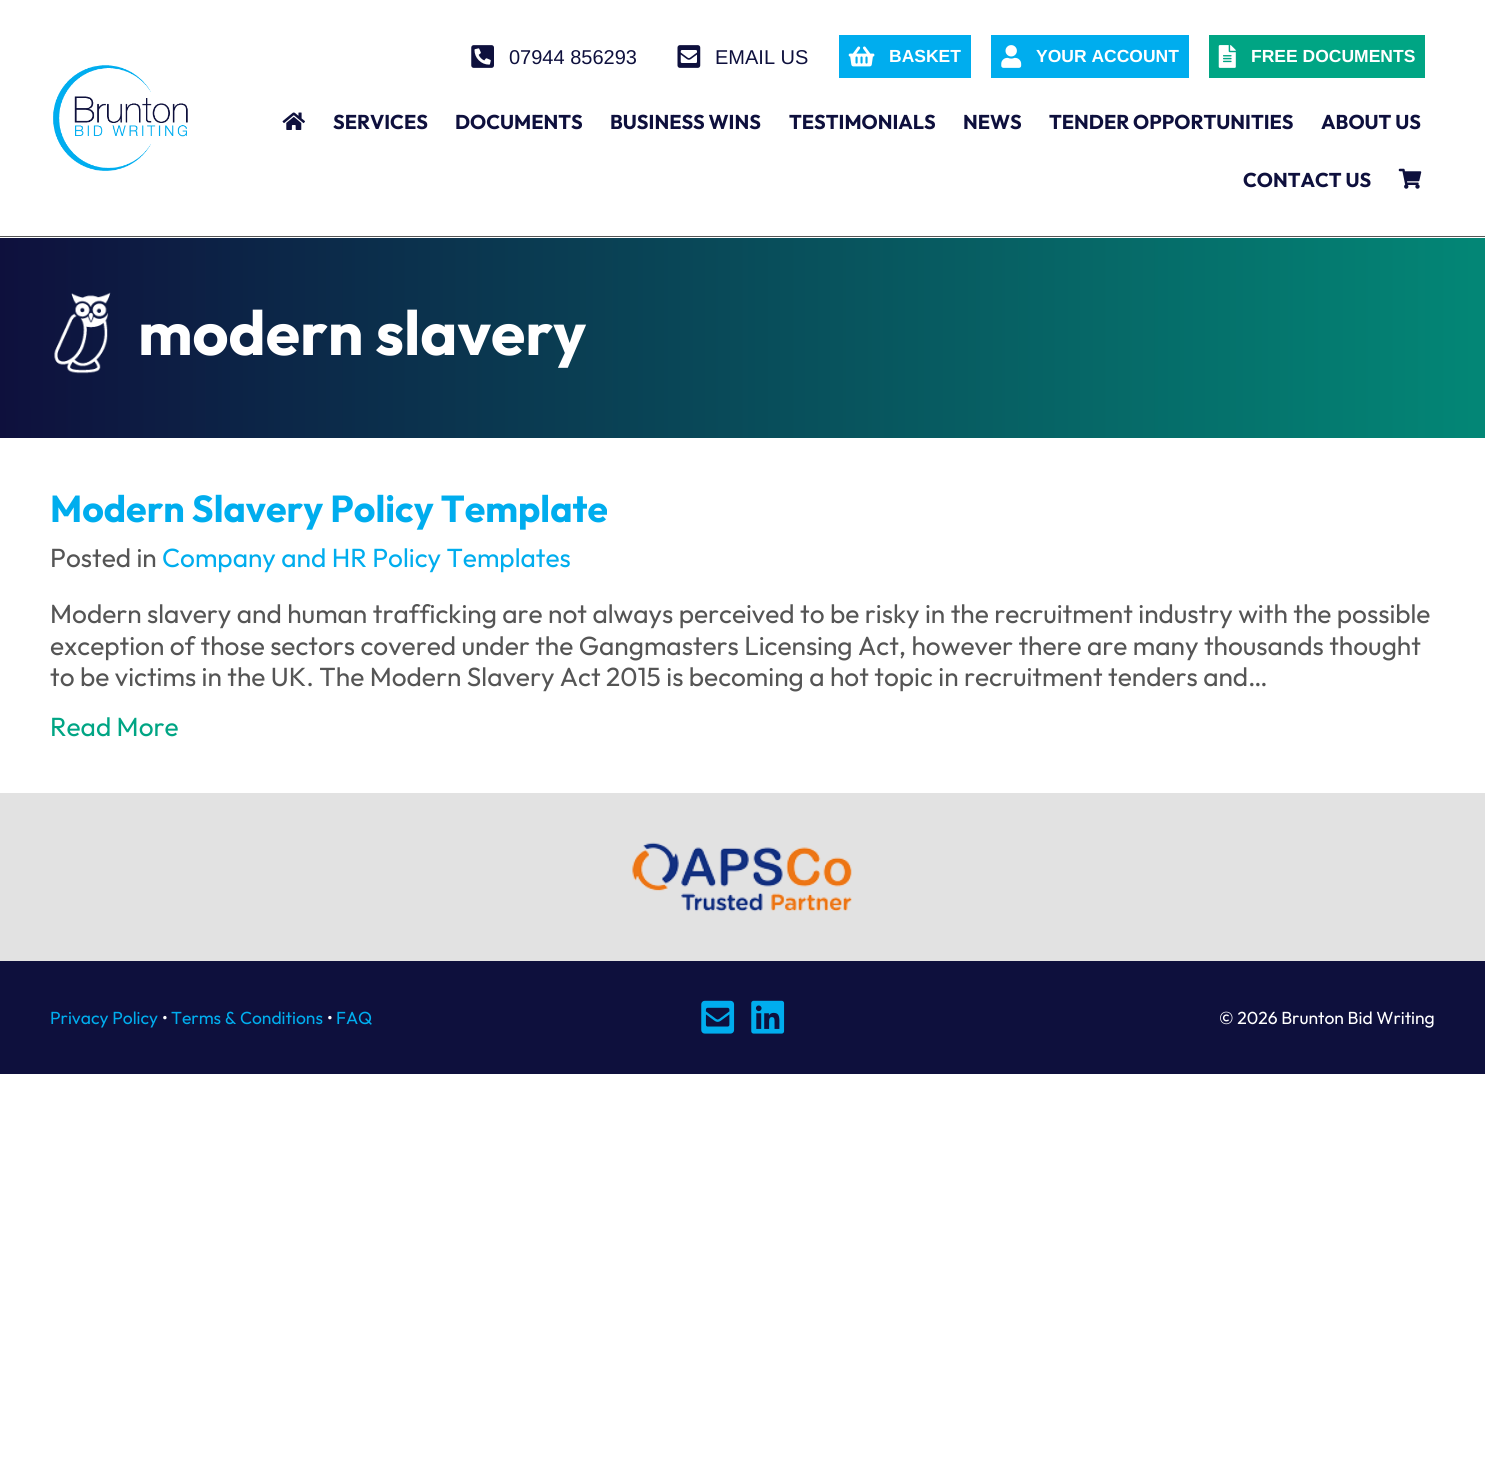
#include <cairo.h>
#include <math.h>
#include <stddef.h>

typedef struct { const char *family; double size; int italic, bold; unsigned color; } style_t;
static cairo_t *ctx;

static void ink(unsigned color) {
    cairo_set_source_rgb(ctx, (color >> 16) / 255.0, (color >> 8 & 255) / 255.0, (color & 255) / 255.0);
}

static void write(double x, double y, const char *s, const style_t *st) {
    cairo_select_font_face(ctx, st->family, st->italic ? CAIRO_FONT_SLANT_ITALIC : CAIRO_FONT_SLANT_NORMAL,
        st->bold ? CAIRO_FONT_WEIGHT_BOLD : CAIRO_FONT_WEIGHT_NORMAL);
    cairo_set_font_size(ctx, st->size);
    ink(st->color);
    cairo_move_to(ctx, x, y);
    cairo_show_text(ctx, s);
}

static void block(double x, double y, double w, double h, unsigned color) {
    ink(color);
    cairo_rectangle(ctx, x, y, w, h);
    cairo_fill(ctx);
}

static void paste(const char *path, double x, double y, double w, double h) {
    cairo_surface_t *image = cairo_image_surface_create_from_png(path);
    cairo_save(ctx);
    cairo_set_source_surface(ctx, image, x, y);
    cairo_rectangle(ctx, x, y, w, h);
    cairo_fill(ctx);
    cairo_restore(ctx);
    cairo_surface_destroy(image);
}

static const style_t s1 = {"Liberation Sans", 20, 0, 0, 0x0e103d};
static const style_t s2 = {"Liberation Sans", 17.5, 0, 1, 0xffffff};
static const style_t s3 = {"Outfit", 20, 0, 1, 0x0e103d};
static const style_t s4 = {"Outfit", 62.5, 0, 1, 0xffffff};
static const style_t s5 = {"Outfit", 37.5, 0, 1, 0x00adee};
static const style_t s6 = {"Outfit", 26.25, 0, 0, 0x555555};
static const style_t s7 = {"Outfit", 26.25, 0, 0, 0x00adee};
static const style_t s8 = {"Outfit", 26.25, 0, 0, 0x00a584};
static const style_t s9 = {"Outfit", 17.5, 0, 0, 0x00adee};
static const style_t s10 = {"Outfit", 17.5, 0, 0, 0xffffff};

int main(void) {
    cairo_surface_t *surface = cairo_image_surface_create(CAIRO_FORMAT_RGB24, 1485, 1483);
    ctx = cairo_create(surface);
    cairo_font_options_t *options = cairo_font_options_create();
    cairo_font_options_set_hint_metrics(options, CAIRO_HINT_METRICS_OFF);
    cairo_font_options_set_hint_style(options, CAIRO_HINT_STYLE_NONE);
    cairo_set_font_options(ctx, options);
    cairo_set_miter_limit(ctx, 4);
    cairo_pattern_t *gradient;
    ink(0xffffff);
    cairo_paint(ctx);
    block(0, 236, 1485, 1, 0x555555);
    paste("pic1.png", 53, 65, 135, 106);
    paste("pic2.png", 471, 45, 23, 23);
    write(509, 64, "07944 856293", &s1);
    paste("pic3.png", 677, 45, 24, 23);
    write(715, 64, "EMAIL US", &s1);
    block(839, 35, 132, 43, 0x00adee);
    paste("pic4.png", 848, 46, 27, 21);
    write(889, 62, "BASKET", &s2);
    block(991, 35, 198, 43, 0x00adee);
    paste("pic5.png", 1001, 45, 21, 23);
    write(1036, 62, "YOUR ACCOUNT", &s2);
    block(1209, 35, 216, 43, 0x00a584);
    paste("pic6.png", 1218, 45, 18, 23);
    write(1251, 62, "FREE DOCUMENTS", &s2);
    paste("pic7.png", 282, 112, 23, 18);
    write(333, 129, "SERVICES", &s3);
    write(455, 129, "DOCUMENTS", &s3);
    write(610, 129, "BUSINESS WINS", &s3);
    write(789, 129, "TESTIMONIALS", &s3);
    write(963, 129, "NEWS", &s3);
    write(1049, 129, "TENDER OPPORTUNITIES", &s3);
    write(1321, 129, "ABOUT US", &s3);
    write(1243, 187, "CONTACT US", &s3);
    paste("pic8.png", 1398, 168, 24, 21);
    gradient = cairo_pattern_create_linear(0, 338, 1485, 337);
    cairo_pattern_add_color_stop_rgba(gradient, 0, 0.055, 0.063, 0.239, 1);
    cairo_pattern_add_color_stop_rgba(gradient, 1, 0.012, 0.529, 0.463, 1);
    cairo_set_source(ctx, gradient);
    cairo_pattern_destroy(gradient);
    cairo_rectangle(ctx, 0, 238, 1485, 200);
    cairo_fill(ctx);
    paste("pic9.png", 54, 292, 57, 82);
    write(138, 355, "modern slavery", &s4);
    write(50, 522, "Modern Slavery Policy Template", &s5);
    write(50, 567, "Posted in", &s6);
    write(162, 567, "Company and HR Policy Templates", &s7);
    write(50, 623, "Modern slavery and human trafficking are not always perceived to be risky in the recruitment industry with the possible", &s6);
    write(50, 655, "exception of those sectors covered under the Gangmasters Licensing Act, however there are many thousands thought", &s6);
    write(50, 686, "to be victims in the UK. The Modern Slavery Act 2015 is becoming a hot topic in recruitment tenders and…", &s6);
    write(50, 736, "Read More", &s8);
    block(0, 793, 1485, 168, 0xe2e2e2);
    paste("pic10.png", 632, 842, 220, 70);
    block(0, 961, 1485, 113, 0x0e103d);
    write(50, 1024, "Privacy Policy", &s9);
    write(162, 1024, "•", &s10);
    write(171, 1024, "Terms & Conditions", &s9);
    write(327, 1024, "•", &s10);
    write(336, 1024, "FAQ", &s9);
    paste("pic11.png", 701, 1000, 34, 34);
    paste("pic12.png", 751, 1000, 34, 34);
    write(1219, 1024, "© 2026 Brunton Bid Writing", &s10);
    cairo_surface_write_to_png(surface, "screenshot.png");
    cairo_font_options_destroy(options);
    cairo_destroy(ctx);
    cairo_surface_destroy(surface);
    return 0;
}
